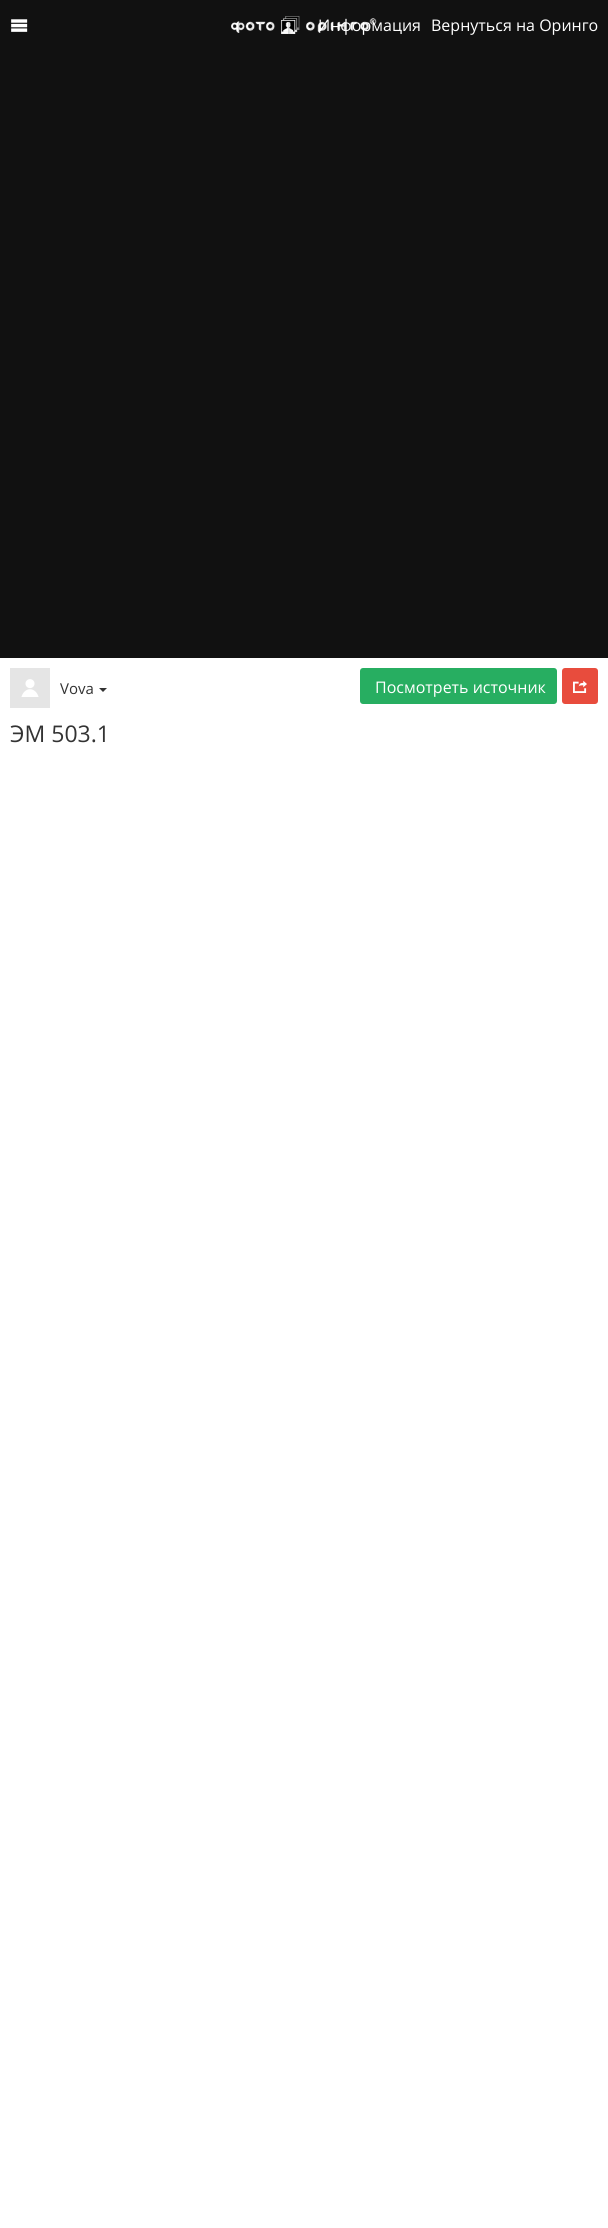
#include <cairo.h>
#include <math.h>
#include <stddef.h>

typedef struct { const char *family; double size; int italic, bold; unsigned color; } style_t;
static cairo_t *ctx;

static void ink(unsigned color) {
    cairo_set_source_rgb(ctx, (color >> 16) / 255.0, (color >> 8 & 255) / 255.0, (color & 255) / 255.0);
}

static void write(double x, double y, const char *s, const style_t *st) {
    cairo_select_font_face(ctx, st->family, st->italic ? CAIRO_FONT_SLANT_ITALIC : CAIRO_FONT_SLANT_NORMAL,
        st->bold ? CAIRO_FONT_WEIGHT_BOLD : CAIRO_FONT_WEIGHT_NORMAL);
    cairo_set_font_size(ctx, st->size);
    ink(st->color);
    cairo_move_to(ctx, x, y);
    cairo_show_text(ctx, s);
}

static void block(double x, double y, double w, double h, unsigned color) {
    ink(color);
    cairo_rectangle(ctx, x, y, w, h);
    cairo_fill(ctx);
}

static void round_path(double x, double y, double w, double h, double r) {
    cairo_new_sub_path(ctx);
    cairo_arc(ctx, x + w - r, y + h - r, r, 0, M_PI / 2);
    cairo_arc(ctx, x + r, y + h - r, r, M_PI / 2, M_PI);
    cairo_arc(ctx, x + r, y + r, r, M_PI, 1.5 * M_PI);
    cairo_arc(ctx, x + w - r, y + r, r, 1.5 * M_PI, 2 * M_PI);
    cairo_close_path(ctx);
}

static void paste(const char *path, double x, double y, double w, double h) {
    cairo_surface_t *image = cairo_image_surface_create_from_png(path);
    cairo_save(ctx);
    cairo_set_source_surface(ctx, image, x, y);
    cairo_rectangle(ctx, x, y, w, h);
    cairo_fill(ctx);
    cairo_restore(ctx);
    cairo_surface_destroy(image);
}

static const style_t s1 = {"Open Sans", 16, 0, 0, 0xffffff};
static const style_t s2 = {"Open Sans", 15, 0, 0, 0x333333};
static const style_t s3 = {"Open Sans", 23, 0, 0, 0x333333};

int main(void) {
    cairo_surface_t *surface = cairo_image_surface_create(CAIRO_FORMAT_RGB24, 608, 2228);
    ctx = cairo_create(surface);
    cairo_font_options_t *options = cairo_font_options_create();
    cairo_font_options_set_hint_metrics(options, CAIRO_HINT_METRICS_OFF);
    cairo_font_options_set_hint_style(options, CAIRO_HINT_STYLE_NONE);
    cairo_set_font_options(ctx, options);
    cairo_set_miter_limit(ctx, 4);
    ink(0xffffff);
    cairo_paint(ctx);
    block(0, 0, 608, 658, 0x111111);
    paste("pic1.png", 11, 19, 17, 13);
    paste("pic2.png", 231, 16, 146, 18);
    write(318, 31, "Информация", &s1);
    write(431, 31, "Вернуться на Оринго", &s1);
    block(10, 668, 40, 40, 0xe5e5e5);
    paste("pic3.png", 21, 679, 18, 18);
    write(60, 694, "Vova", &s2);
    cairo_new_path(ctx);
    cairo_move_to(ctx, 99, 688);
    cairo_line_to(ctx, 107, 688);
    cairo_line_to(ctx, 103, 692);
    cairo_close_path(ctx);
    cairo_fill(ctx);
    ink(0x27ae61);
    round_path(360, 668, 197, 36, 3);
    cairo_fill(ctx);
    write(375, 693, "Посмотреть источник", &s1);
    ink(0xe84c3d);
    round_path(562, 668, 36, 36, 3);
    cairo_fill(ctx);
    paste("pic4.png", 573, 680, 14, 13);
    write(10, 742, "ЭМ 503.1", &s3);
    cairo_surface_write_to_png(surface, "screenshot.png");
    cairo_font_options_destroy(options);
    cairo_destroy(ctx);
    cairo_surface_destroy(surface);
    return 0;
}
